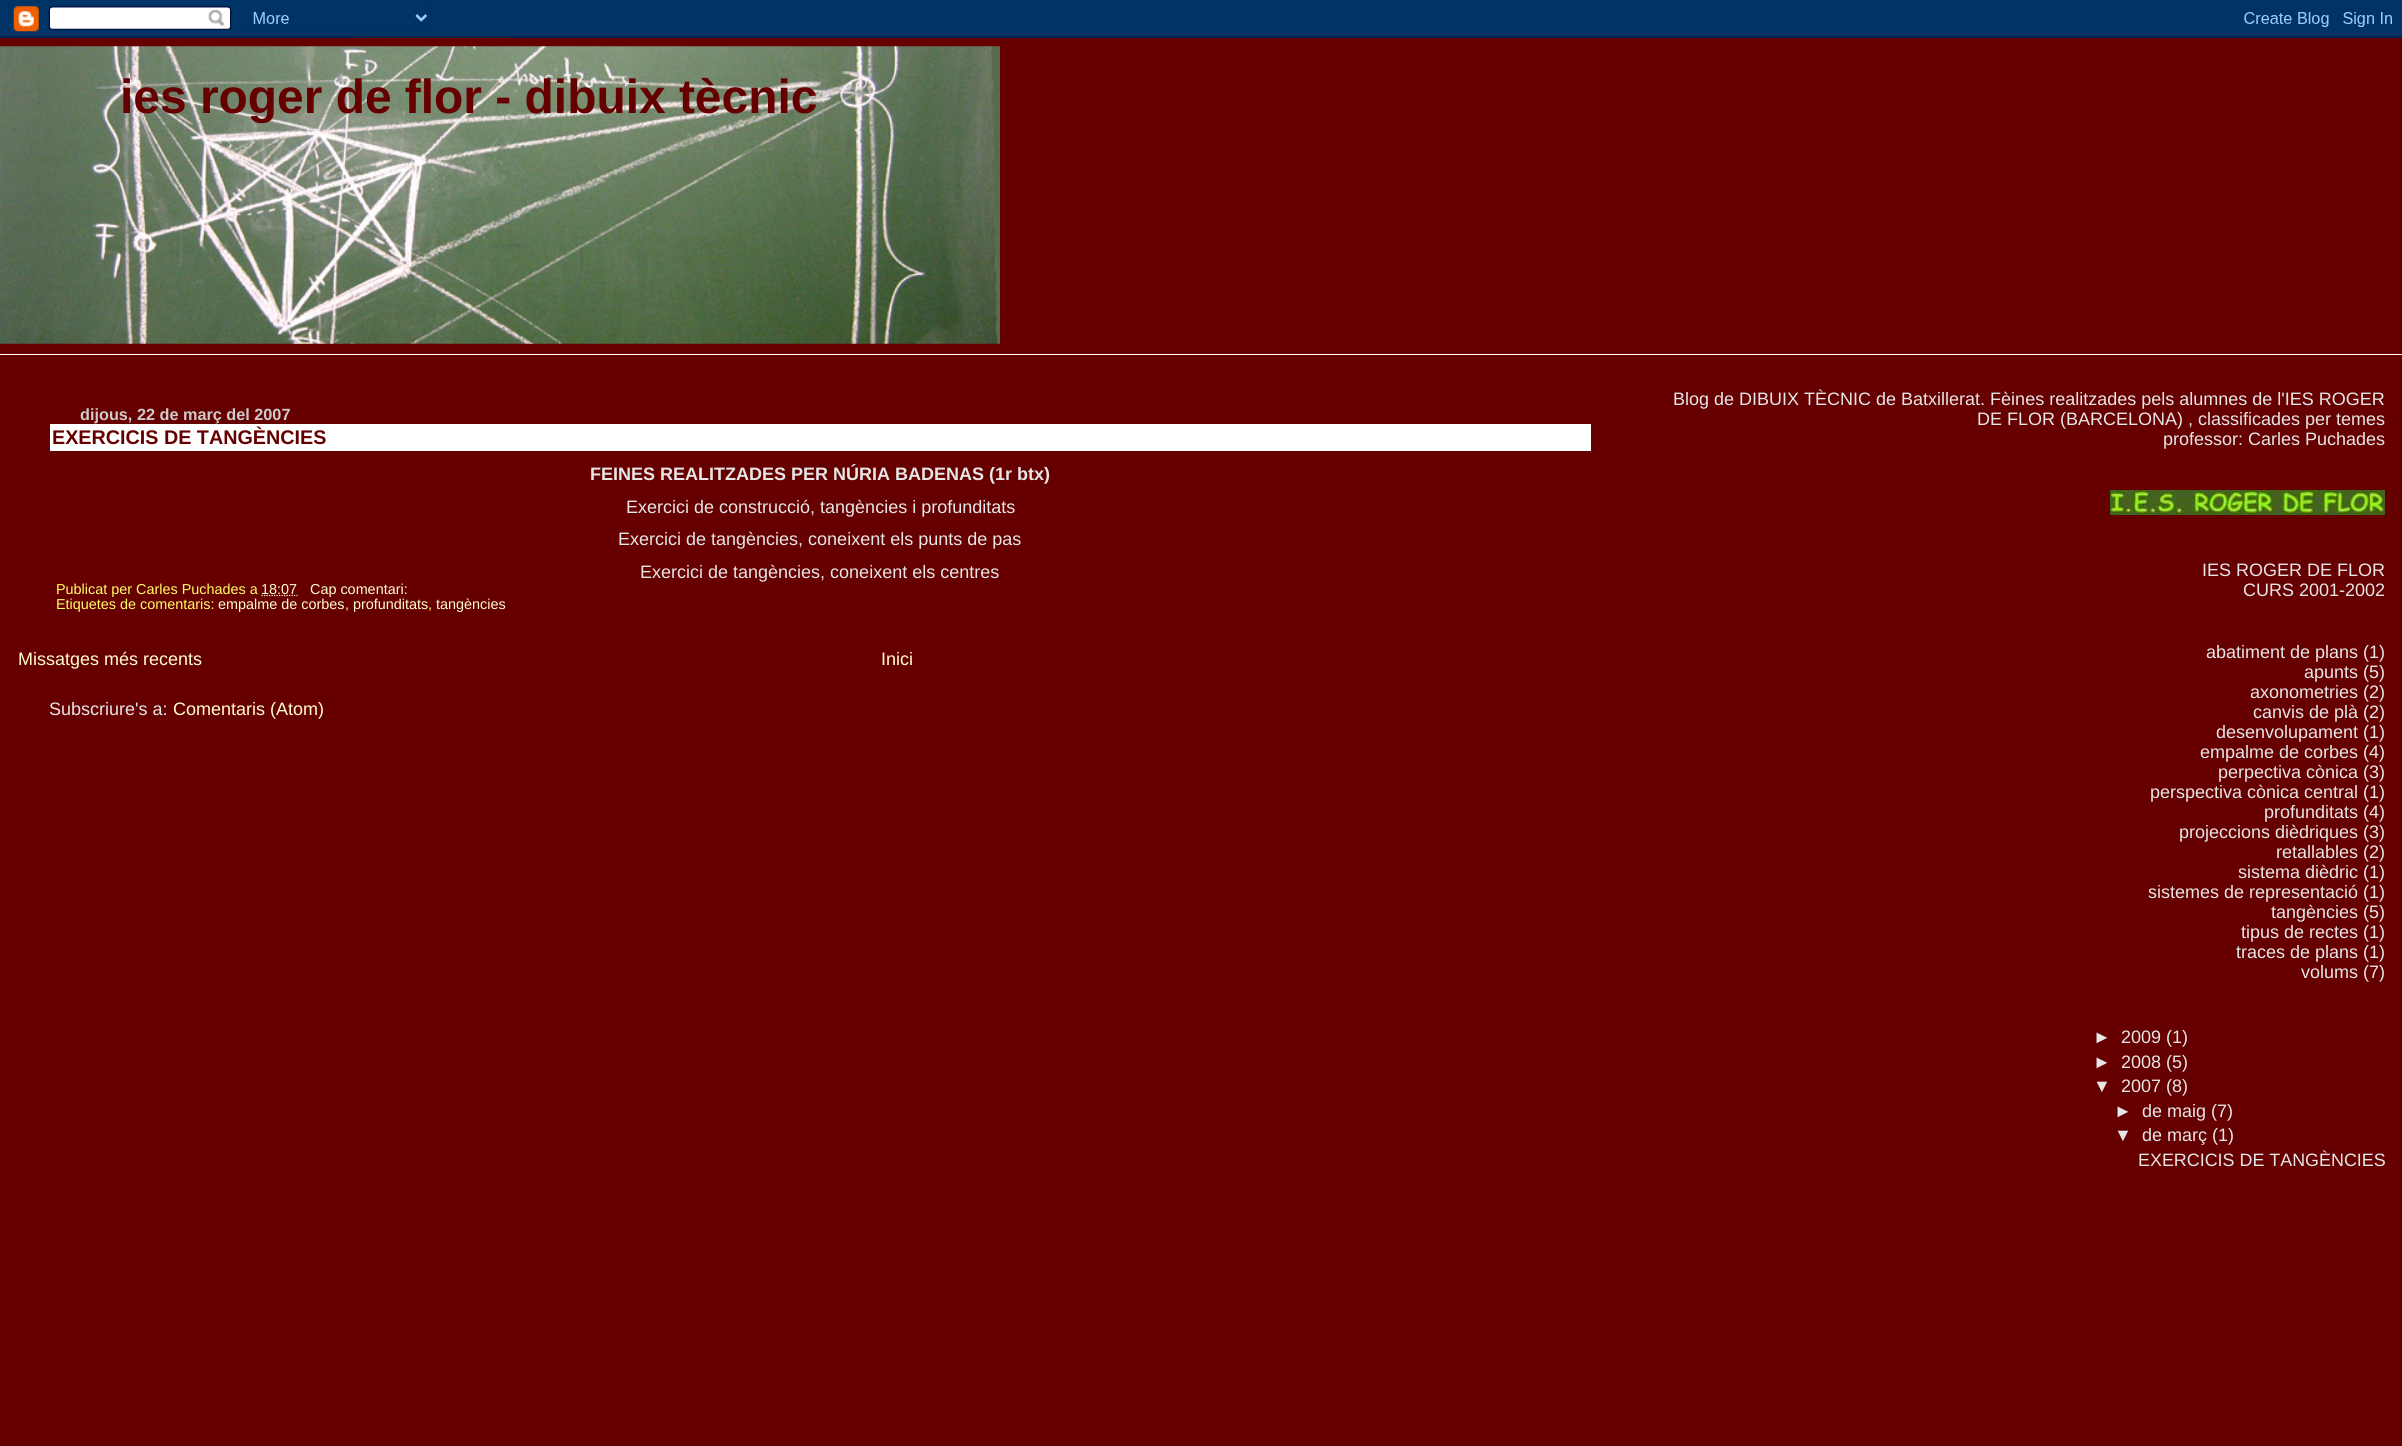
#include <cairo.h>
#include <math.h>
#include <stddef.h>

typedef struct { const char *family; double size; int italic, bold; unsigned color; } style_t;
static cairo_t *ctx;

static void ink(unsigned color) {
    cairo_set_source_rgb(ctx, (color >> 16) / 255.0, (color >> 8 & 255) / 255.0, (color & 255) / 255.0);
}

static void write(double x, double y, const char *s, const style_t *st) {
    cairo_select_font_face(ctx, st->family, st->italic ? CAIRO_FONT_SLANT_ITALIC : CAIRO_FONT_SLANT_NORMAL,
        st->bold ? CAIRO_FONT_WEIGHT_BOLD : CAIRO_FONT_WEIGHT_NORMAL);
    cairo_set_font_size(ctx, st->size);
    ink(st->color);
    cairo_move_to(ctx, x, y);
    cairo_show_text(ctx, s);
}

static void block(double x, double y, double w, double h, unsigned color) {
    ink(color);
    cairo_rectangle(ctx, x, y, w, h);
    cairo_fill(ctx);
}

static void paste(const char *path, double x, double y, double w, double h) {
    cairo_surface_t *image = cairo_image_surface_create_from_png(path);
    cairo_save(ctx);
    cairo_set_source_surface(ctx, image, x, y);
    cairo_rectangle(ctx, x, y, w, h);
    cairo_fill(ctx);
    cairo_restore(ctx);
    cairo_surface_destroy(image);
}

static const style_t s1 = {"Liberation Sans", 47.9, 0, 1, 0x660000};
static const style_t s2 = {"Liberation Sans", 16.25, 0, 1, 0xcccccc};
static const style_t s3 = {"Liberation Sans", 19.75, 0, 1, 0x660000};
static const style_t s4 = {"Liberation Sans", 18, 0, 1, 0xe6e6e6};
static const style_t s5 = {"Liberation Sans", 18, 0, 0, 0xe6e6e6};
static const style_t s6 = {"Liberation Sans", 14.4, 0, 0, 0xffff66};
static const style_t s7 = {"Liberation Sans", 14.4, 0, 0, 0xffffcc};
static const style_t s8 = {"Liberation Sans", 18, 0, 0, 0xffffcc};
static const style_t s9 = {"Liberation Sans", 17.9, 0, 0, 0xe6e6e6};

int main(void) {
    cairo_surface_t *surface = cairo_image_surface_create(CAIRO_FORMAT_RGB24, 2402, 1446);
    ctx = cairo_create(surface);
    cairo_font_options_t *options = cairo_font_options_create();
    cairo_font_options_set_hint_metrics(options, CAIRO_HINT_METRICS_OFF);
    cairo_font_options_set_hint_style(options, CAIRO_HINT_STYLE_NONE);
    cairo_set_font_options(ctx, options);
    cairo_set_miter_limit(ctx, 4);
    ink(0x660000);
    cairo_paint(ctx);
    paste("pic1.png", 0, 0, 2402, 38);
    block(0, 354, 2402, 1, 0xffffff);
    paste("pic2.png", 0, 46, 1000, 298);
    write(120, 113, "ies roger de flor - dibuix tècnic", &s1);
    write(80, 420, "dijous, 22 de març del 2007", &s2);
    block(50, 424, 1541, 27, 0xffffff);
    write(52, 444, "EXERCICIS DE TANGÈNCIES", &s3);
    write(590, 480, "FEINES REALITZADES PER NÚRIA BADENAS (1r btx)", &s4);
    write(626, 513, "Exercici de construcció, tangències i profunditats", &s5);
    write(618, 545, "Exercici de tangències, coneixent els punts de pas", &s5);
    write(640, 578, "Exercici de tangències, coneixent els centres", &s5);
    write(56, 594, "Publicat per Carles Puchades a", &s6);
    cairo_new_path(ctx);
    cairo_move_to(ctx, 261.5, 595.5);
    cairo_line_to(ctx, 297.5, 595.5);
    ink(0xffffcc);
    cairo_set_line_width(ctx, 1.2);
    cairo_set_dash(ctx, (double[]){1.25, 1.25}, 2, 0);
    cairo_stroke(ctx);
    write(261, 594, "18:07", &s7);
    write(310, 594, "Cap comentari:", &s7);
    write(56, 609, "Etiquetes de comentaris:", &s6);
    write(218, 609, "empalme de corbes", &s7);
    write(345, 609, ",", &s6);
    write(353, 609, "profunditats", &s7);
    write(428, 609, ",", &s6);
    write(436, 609, "tangències", &s7);
    write(18, 665, "Missatges més recents", &s8);
    write(881, 665, "Inici", &s8);
    write(49, 715, "Subscriure's a:", &s5);
    write(173, 715, "Comentaris (Atom)", &s8);
    write(1673, 405, "Blog de DIBUIX TÈCNIC de Batxillerat. Fèines realitzades pels alumnes de l'IES ROGER", &s5);
    write(1977, 425, "DE FLOR (BARCELONA) , classificades per temes", &s5);
    write(2163, 445, "professor: Carles Puchades", &s5);
    paste("pic3.png", 2110, 490, 275, 25);
    write(2202, 576, "IES ROGER DE FLOR", &s5);
    write(2243, 596, "CURS 2001-2002", &s5);
    write(2206, 658, "abatiment de plans (1)", &s5);
    write(2304, 678, "apunts (5)", &s5);
    write(2250, 698, "axonometries (2)", &s5);
    write(2253, 718, "canvis de plà (2)", &s5);
    write(2216, 738, "desenvolupament (1)", &s5);
    write(2200, 758, "empalme de corbes (4)", &s5);
    write(2218, 778, "perpectiva cònica (3)", &s5);
    write(2150, 798, "perspectiva cònica central (1)", &s5);
    write(2264, 818, "profunditats (4)", &s5);
    write(2179, 838, "projeccions dièdriques (3)", &s5);
    write(2276, 858, "retallables (2)", &s5);
    write(2238, 878, "sistema dièdric (1)", &s5);
    write(2148, 898, "sistemes de representació (1)", &s5);
    write(2271, 918, "tangències (5)", &s5);
    write(2241, 938, "tipus de rectes (1)", &s5);
    write(2236, 958, "traces de plans (1)", &s5);
    write(2301, 978, "volums (7)", &s5);
    write(2093, 1043, "►", &s5);
    write(2121, 1043, "2009 (1)", &s5);
    write(2093, 1068, "►", &s5);
    write(2121, 1068, "2008 (5)", &s5);
    write(2093, 1092, "▼", &s5);
    write(2121, 1092, "2007 (8)", &s5);
    write(2114, 1117, "►", &s5);
    write(2142, 1117, "de maig (7)", &s5);
    write(2114, 1141, "▼", &s5);
    write(2142, 1141, "de març (1)", &s5);
    write(2138, 1166, "EXERCICIS DE TANGÈNCIES", &s9);
    cairo_surface_write_to_png(surface, "screenshot.png");
    cairo_font_options_destroy(options);
    cairo_destroy(ctx);
    cairo_surface_destroy(surface);
    return 0;
}
